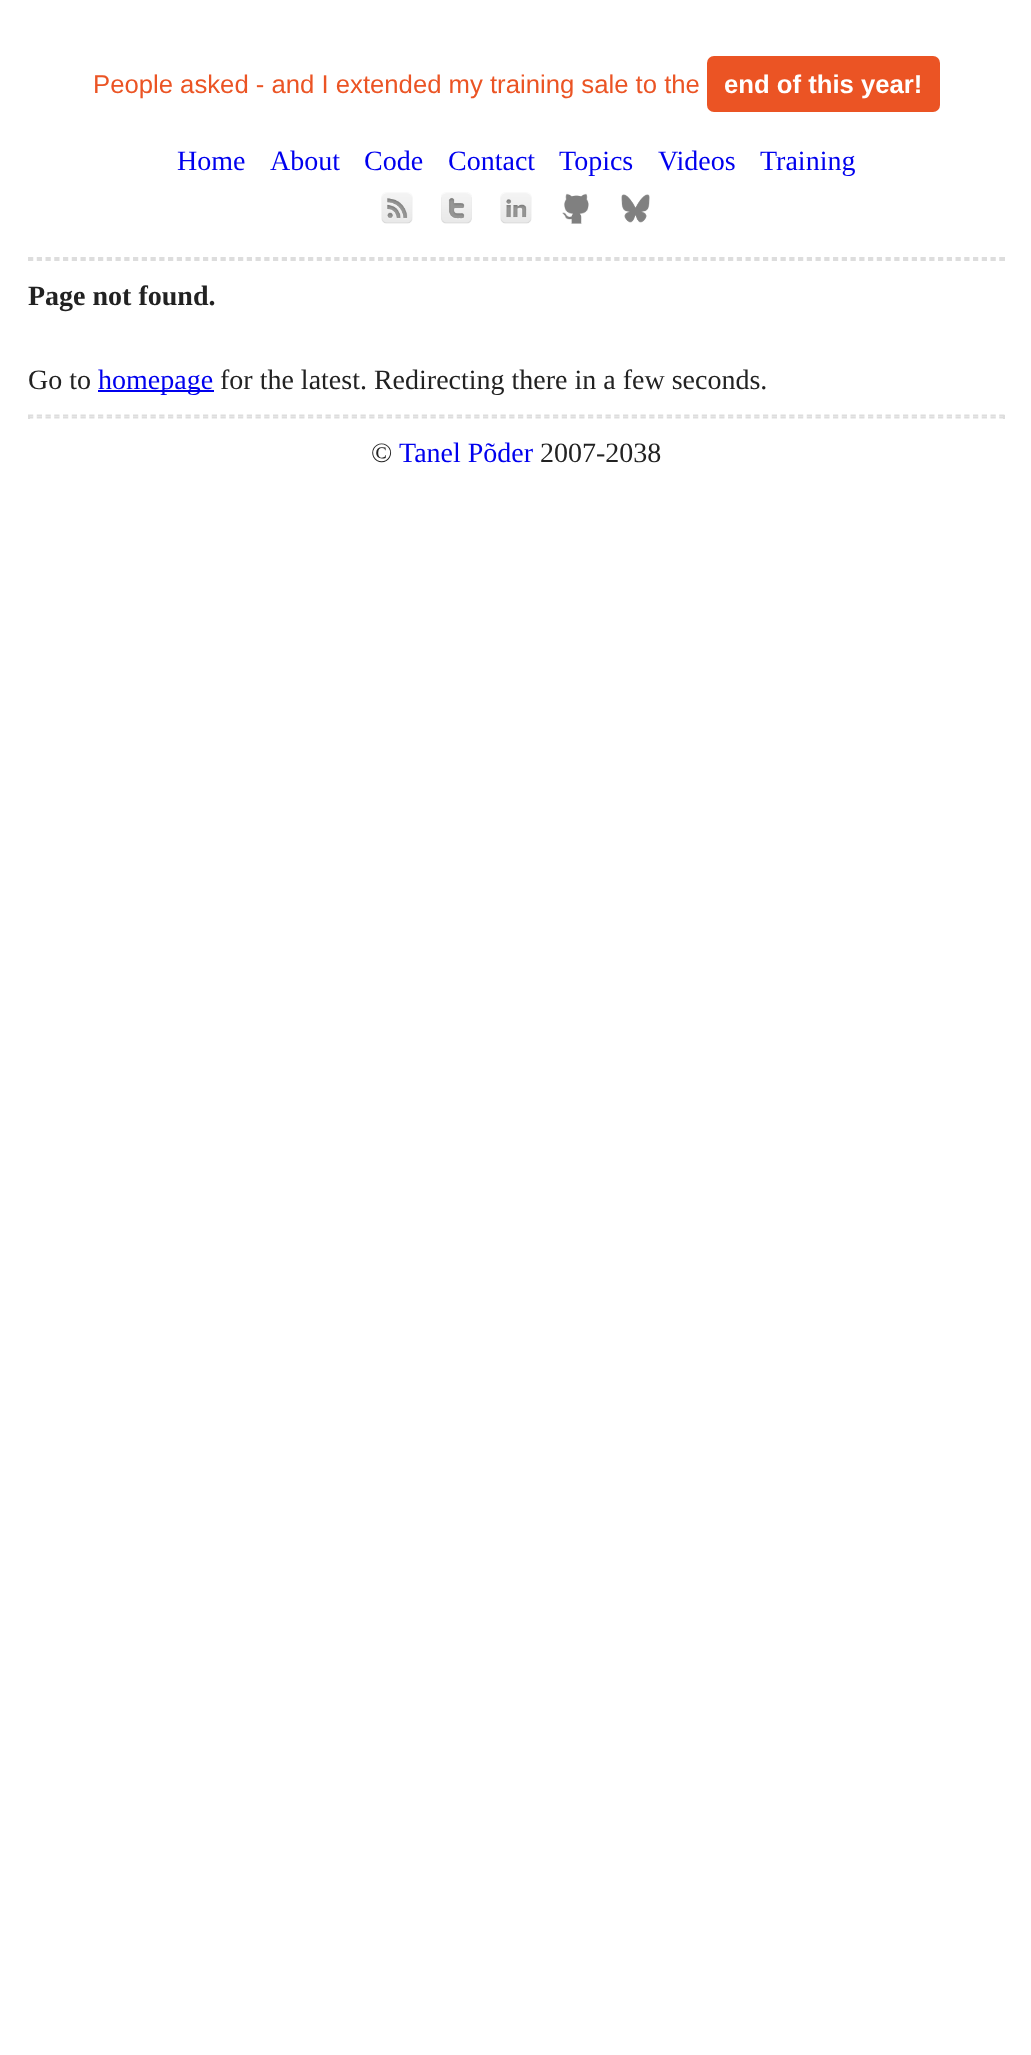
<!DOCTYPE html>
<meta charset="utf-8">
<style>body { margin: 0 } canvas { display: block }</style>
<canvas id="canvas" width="1031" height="2055"></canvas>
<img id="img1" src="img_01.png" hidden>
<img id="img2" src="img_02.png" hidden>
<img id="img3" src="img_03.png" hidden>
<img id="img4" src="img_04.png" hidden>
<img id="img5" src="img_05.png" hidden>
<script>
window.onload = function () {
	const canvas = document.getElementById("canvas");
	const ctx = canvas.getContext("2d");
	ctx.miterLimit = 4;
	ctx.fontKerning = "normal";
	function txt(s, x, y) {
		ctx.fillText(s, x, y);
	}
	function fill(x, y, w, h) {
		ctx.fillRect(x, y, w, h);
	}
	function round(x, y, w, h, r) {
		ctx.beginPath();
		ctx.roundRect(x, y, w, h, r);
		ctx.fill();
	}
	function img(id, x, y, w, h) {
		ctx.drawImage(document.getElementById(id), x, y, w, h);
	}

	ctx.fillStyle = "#FFFFFF";
	fill(0, 0, 1031, 2055);
	ctx.fillStyle = "#EB5424";
	round(707, 56, 233, 56, 7);
	img("img1", 381, 192, 32, 32);
	img("img2", 441, 192, 31, 32);
	img("img3", 500, 192, 32, 32);
	img("img4", 562, 193, 27, 31);
	img("img5", 621, 194, 29, 29);
	ctx.beginPath();
	ctx.moveTo(28, 258);
	ctx.lineTo(1004.5, 258);
	ctx.strokeStyle = "#DDDDDD";
	ctx.lineWidth = 1.8;
	ctx.setLineDash([5.25, 3.5]);
	ctx.stroke();
	ctx.fillStyle = "#DDDDDD";
	fill(1003, 257, 2, 4);
	ctx.beginPath();
	ctx.moveTo(28, 260);
	ctx.lineTo(1004.5, 260);
	ctx.stroke();
	fill(28, 257, 2, 4);
	ctx.fillStyle = "#0000EE";
	fill(98, 390, 116, 2);
	ctx.beginPath();
	ctx.moveTo(28, 415.5);
	ctx.lineTo(1004.5, 415.5);
	ctx.stroke();
	ctx.fillStyle = "#DDDDDD";
	fill(1003, 415, 2, 4);
	ctx.beginPath();
	ctx.moveTo(28, 417.5);
	ctx.lineTo(1004.5, 417.5);
	ctx.stroke();
	fill(28, 415, 2, 4);
	ctx.font = "25.7px Liberation Sans";
	ctx.fillStyle = "#EB5424";
	txt("People asked - and I extended my training sale to the", 93, 93);
	ctx.font = "bold 25.7px Liberation Sans";
	ctx.fillStyle = "#FFFFFF";
	txt("end of this year!", 724, 93);
	ctx.font = "28px Liberation Serif";
	ctx.fillStyle = "#0000EE";
	txt("Home", 177, 170);
	txt("About", 270, 170);
	txt("Code", 364, 170);
	txt("Contact", 448, 170);
	txt("Topics", 559, 170);
	txt("Videos", 658, 170);
	txt("Training", 760, 170);
	ctx.font = "bold 28px Liberation Serif";
	ctx.fillStyle = "#222222";
	txt("Page not found.", 28, 305);
	ctx.font = "28px Liberation Serif";
	txt("Go to", 28, 389);
	ctx.fillStyle = "#0000EE";
	txt("homepage", 98, 389);
	ctx.fillStyle = "#222222";
	txt("for the latest. Redirecting there in a few seconds.", 220, 389);
	txt("©", 371, 462);
	ctx.fillStyle = "#0000EE";
	txt("Tanel Põder", 399, 462);
	ctx.fillStyle = "#222222";
	txt("2007-2038", 540, 462);
};
</script>
